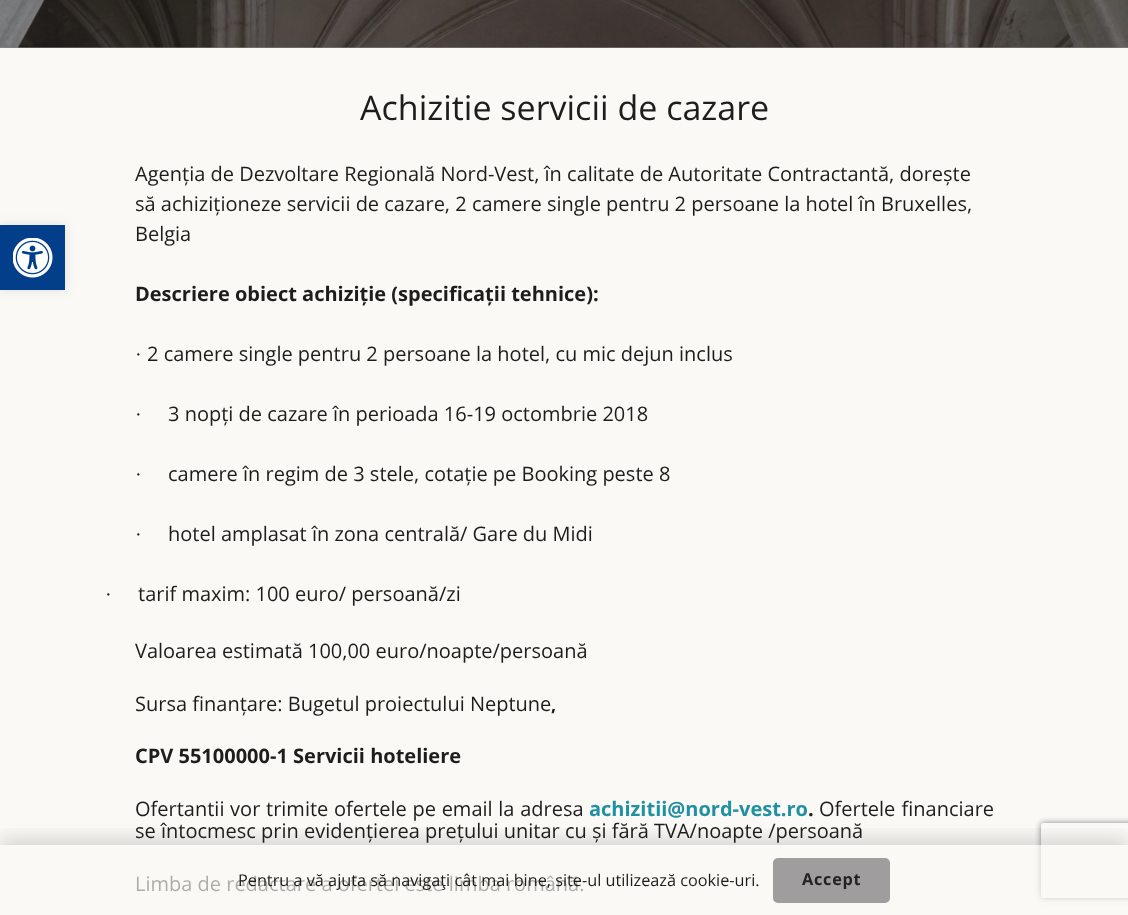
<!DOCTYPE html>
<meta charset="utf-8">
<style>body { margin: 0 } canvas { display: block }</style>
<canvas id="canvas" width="1128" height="915"></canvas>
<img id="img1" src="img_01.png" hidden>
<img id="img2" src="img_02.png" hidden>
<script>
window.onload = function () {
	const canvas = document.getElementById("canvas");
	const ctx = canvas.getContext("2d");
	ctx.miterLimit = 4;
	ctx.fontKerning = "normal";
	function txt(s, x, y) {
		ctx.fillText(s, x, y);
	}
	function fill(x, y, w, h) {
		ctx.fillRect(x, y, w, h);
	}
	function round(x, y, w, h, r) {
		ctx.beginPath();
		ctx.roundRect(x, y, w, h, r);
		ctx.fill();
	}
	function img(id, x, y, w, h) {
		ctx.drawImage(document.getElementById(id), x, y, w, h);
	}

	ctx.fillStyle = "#FAF9F6";
	fill(0, 0, 1128, 915);
	ctx.fillStyle = "#8A8A88";
	fill(0, 47, 1128, 1);
	ctx.fillStyle = "rgba(0, 0, 0, 0.1)";
	ctx.filter = "blur(6px)";
	ctx.beginPath();
	ctx.rect(0, 225, 65, 65);
	ctx.fill();
	ctx.filter = "none";
	ctx.fillStyle = "#023E8A";
	fill(0, 225, 65, 65);
	img("img1", 13, 238, 40, 40);
	img("img2", 0, 0, 1128, 48);
	ctx.save();
	ctx.beginPath();
	ctx.rect(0, 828, 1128, 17);
	ctx.clip();
	ctx.fillStyle = "rgba(0, 0, 0, 0.15)";
	ctx.filter = "blur(9.5px)";
	ctx.beginPath();
	ctx.rect(0, 839, 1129, 70);
	ctx.fill();
	ctx.filter = "none";
	ctx.restore();
	ctx.save();
	ctx.beginPath();
	ctx.moveTo(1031, 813);
	ctx.lineTo(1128, 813);
	ctx.lineTo(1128, 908);
	ctx.lineTo(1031, 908);
	ctx.closePath();
	ctx.moveTo(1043.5, 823);
	ctx.lineTo(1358.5, 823);
	ctx.bezierCurveTo(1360, 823, 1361, 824, 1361, 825.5);
	ctx.lineTo(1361, 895.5);
	ctx.bezierCurveTo(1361, 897, 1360, 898, 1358.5, 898);
	ctx.lineTo(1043.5, 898);
	ctx.bezierCurveTo(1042, 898, 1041, 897, 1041, 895.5);
	ctx.lineTo(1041, 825.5);
	ctx.bezierCurveTo(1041, 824, 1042, 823, 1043.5, 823);
	ctx.closePath();
	ctx.clip("evenodd");
	ctx.fillStyle = "#808080";
	ctx.filter = "blur(3px)";
	ctx.beginPath();
	ctx.roundRect(1041, 823, 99, 75, 2.5);
	ctx.fill();
	ctx.filter = "none";
	ctx.restore();
	ctx.font = "34px Open Sans";
	ctx.fillStyle = "#1D1D1B";
	txt("Achizitie servicii de cazare", 360, 120);
	ctx.font = "20px Open Sans";
	txt("Agenția de Dezvoltare Regională Nord-Vest, în calitate de Autoritate Contractantă, dorește", 135, 181);
	txt("să achiziționeze servicii de cazare, 2 camere single pentru 2 persoane la hotel în Bruxelles,", 135, 211);
	txt("Belgia", 135, 241);
	ctx.font = "bold 20px Open Sans";
	txt("Descriere obiect achiziție (specificații tehnice):", 135, 301);
	ctx.font = "20px Liberation Serif";
	txt("·", 135, 361);
	ctx.font = "20px Open Sans";
	txt("2 camere single pentru 2 persoane la hotel, cu mic dejun inclus", 147, 361);
	ctx.font = "20px Liberation Serif";
	txt("·", 135, 421);
	ctx.font = "20px Open Sans";
	txt("3 nopți de cazare în perioada 16-19 octombrie 2018", 168, 421);
	ctx.font = "20px Liberation Serif";
	txt("·", 135, 481);
	ctx.font = "20px Open Sans";
	txt("camere în regim de 3 stele, cotație pe Booking peste 8", 168, 481);
	ctx.font = "20px Liberation Serif";
	txt("·", 135, 541);
	ctx.font = "20px Open Sans";
	txt("hotel amplasat în zona centrală/ Gare du Midi", 168, 541);
	ctx.font = "20px Liberation Serif";
	txt("·", 105, 601);
	ctx.font = "20px Open Sans";
	txt("tarif maxim: 100 euro/ persoană/zi", 138, 601);
	txt("Valoarea estimată 100,00 euro/noapte/persoană", 135, 658);
	txt("Sursa finanțare: Bugetul proiectului Neptune", 135, 711);
	ctx.font = "bold 18px Open Sans";
	txt(",", 551, 711);
	ctx.font = "bold 20px Open Sans";
	txt("CPV 55100000-1 Servicii hoteliere", 135, 763);
	ctx.wordSpacing = "0.5px";
	ctx.font = "20px Open Sans";
	txt("Ofertantii vor trimite ofertele pe email la adresa", 135, 816);
	ctx.wordSpacing = "0px";
	ctx.font = "bold 20px Open Sans";
	ctx.fillStyle = "#2190A3";
	txt("achizitii@nord-vest.ro", 589, 816);
	ctx.fillStyle = "#1D1D1B";
	txt(".", 808, 816);
	ctx.wordSpacing = "1px";
	ctx.font = "20px Open Sans";
	txt("Ofertele financiare", 819, 816);
	ctx.wordSpacing = "0px";
	txt("se întocmesc prin evidențierea prețului unitar cu și fără TVA/noapte /persoană", 135, 838);
	txt("Limba de redactare a ofertei este limba română.", 135, 891);
	ctx.fillStyle = "rgba(250, 249, 246, 0.65)";
	fill(136, 845, 992, 59);
	ctx.font = "16.25px Open Sans";
	ctx.fillStyle = "#1D1D1B";
	txt("Pentru a vă ajuta să navigaţi cât mai bine, site-ul utilizează cookie-uri.", 238, 886);
	ctx.fillStyle = "#9F9D9D";
	round(773, 858, 117, 45, 5);
	ctx.letterSpacing = "0.75px";
	ctx.font = "bold 16.25px Open Sans";
	ctx.fillStyle = "#232323";
	txt("Accept", 802, 885);
};
</script>
